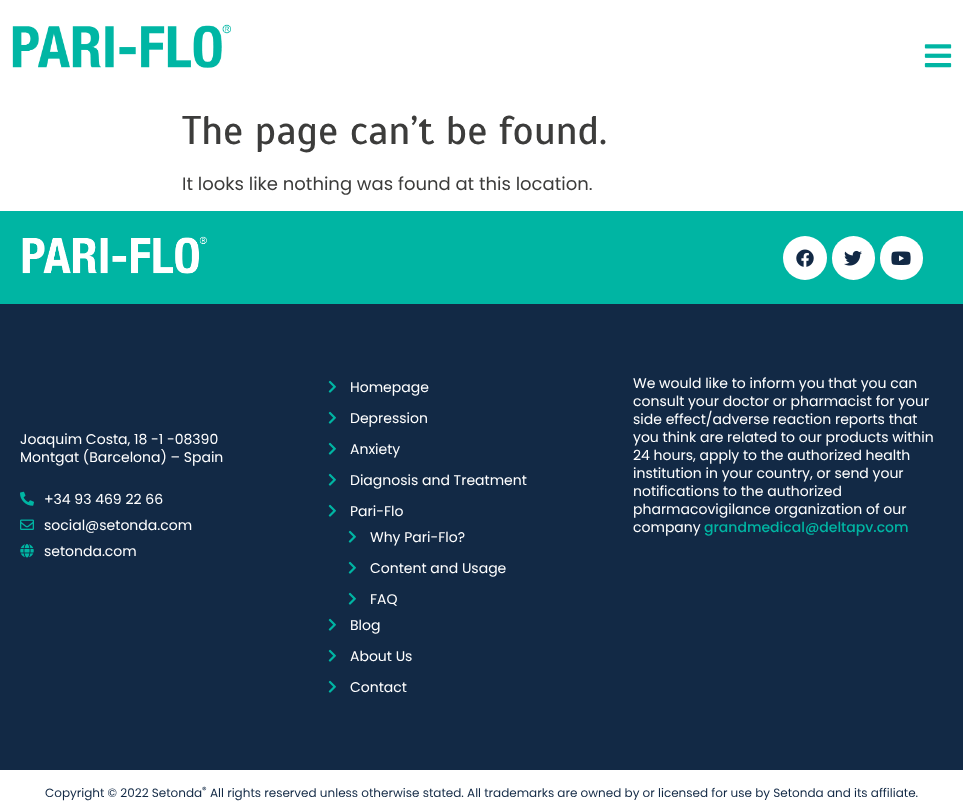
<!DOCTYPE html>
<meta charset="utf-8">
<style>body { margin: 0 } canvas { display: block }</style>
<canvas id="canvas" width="963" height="812"></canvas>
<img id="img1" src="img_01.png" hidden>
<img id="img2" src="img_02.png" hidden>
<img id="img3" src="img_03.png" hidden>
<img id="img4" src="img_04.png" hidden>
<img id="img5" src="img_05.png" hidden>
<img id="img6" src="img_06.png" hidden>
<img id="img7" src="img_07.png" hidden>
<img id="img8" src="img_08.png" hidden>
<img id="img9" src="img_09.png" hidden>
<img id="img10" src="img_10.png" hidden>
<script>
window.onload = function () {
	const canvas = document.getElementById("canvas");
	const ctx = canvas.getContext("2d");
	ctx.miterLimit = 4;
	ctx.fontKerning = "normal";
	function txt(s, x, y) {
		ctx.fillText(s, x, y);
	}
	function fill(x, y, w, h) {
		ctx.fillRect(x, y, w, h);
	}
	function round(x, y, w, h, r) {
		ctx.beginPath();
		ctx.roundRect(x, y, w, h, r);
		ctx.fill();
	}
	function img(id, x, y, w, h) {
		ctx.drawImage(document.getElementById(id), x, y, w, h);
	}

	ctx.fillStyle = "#FFFFFF";
	fill(0, 0, 963, 812);
	img("img1", 12, 24, 219, 44);
	img("img2", 924, 44, 28, 24);
	ctx.fillStyle = "#00B5A3";
	fill(0, 211, 963, 93);
	img("img3", 22, 236, 185, 38);
	ctx.fillStyle = "#FFFFFF";
	ctx.beginPath();
	ctx.arc(805, 258, 22, 0, Math.PI * 2);
	ctx.fill();
	img("img4", 796, 249, 18, 18);
	round(832, 236, 43, 44, 21.5);
	img("img5", 844, 250, 18, 16);
	round(880, 236, 43, 44, 21.5);
	img("img6", 891, 251, 20, 14);
	ctx.fillStyle = "#122945";
	fill(0, 304, 963, 466);
	img("img7", 20, 491, 14, 15);
	img("img8", 20, 519, 14, 11);
	img("img9", 20, 544, 14, 14);
	img("img10", 328, 380, 8, 13);
	img("img10", 328, 411, 8, 13);
	img("img10", 328, 442, 8, 13);
	img("img10", 328, 473, 8, 13);
	img("img10", 328, 504, 8, 13);
	img("img10", 348, 530, 8, 13);
	img("img10", 348, 561, 8, 13);
	img("img10", 348, 592, 8, 13);
	img("img10", 328, 618, 8, 13);
	img("img10", 328, 649, 8, 13);
	img("img10", 328, 680, 8, 13);
	ctx.font = "40px Scada";
	ctx.fillStyle = "#3C3C3B";
	txt("The page can’t be found.", 182, 144);
	ctx.font = "18px Poppins";
	txt("It looks like nothing was found at this location.", 182, 190);
	ctx.font = "14px Poppins";
	ctx.fillStyle = "#FFFFFF";
	txt("Joaquim Costa, 18 -1 -08390", 20, 444);
	txt("Montgat (Barcelona) – Spain", 20, 462);
	txt("+34 93 469 22 66", 44, 504);
	txt("social@setonda.com", 44, 530);
	txt("setonda.com", 44, 556);
	txt("Homepage", 350, 392);
	txt("Depression", 350, 423);
	txt("Anxiety", 350, 454);
	txt("Diagnosis and Treatment", 350, 485);
	txt("Pari-Flo", 350, 516);
	txt("Why Pari-Flo?", 370, 542);
	txt("Content and Usage", 370, 573);
	txt("FAQ", 370, 604);
	txt("Blog", 350, 630);
	txt("About Us", 350, 661);
	txt("Contact", 350, 692);
	txt("We would like to inform you that you can", 633, 388);
	txt("consult your doctor or pharmacist for your", 633, 406);
	txt("side effect/adverse reaction reports that", 633, 424);
	txt("you think are related to our products within", 633, 442);
	txt("24 hours, apply to the authorized health", 633, 460);
	txt("institution in your country, or send your", 633, 478);
	txt("notifications to the authorized", 633, 496);
	txt("pharmacovigilance organization of our", 633, 514);
	txt("company", 633, 532);
	ctx.font = "500 14px Poppins";
	ctx.fillStyle = "#00B5A3";
	txt("grandmedical@deltapv.com", 704, 532);
	ctx.font = "12px Poppins";
	ctx.fillStyle = "#122945";
	txt("Copyright © 2022 Setonda", 45, 797);
	ctx.font = "9px Poppins";
	txt("®", 202, 793);
	ctx.font = "12px Poppins";
	txt("All rights reserved unless otherwise stated. All trademarks are owned by or licensed for use by Setonda and its affiliate.", 210, 797);
};
</script>
